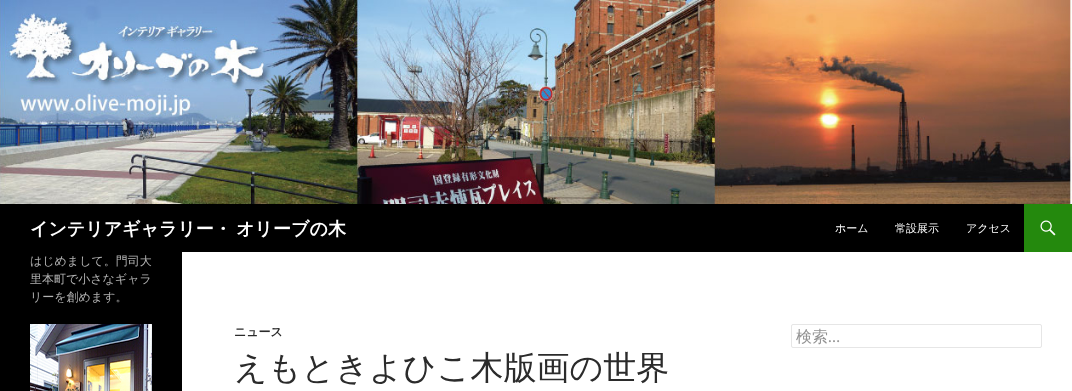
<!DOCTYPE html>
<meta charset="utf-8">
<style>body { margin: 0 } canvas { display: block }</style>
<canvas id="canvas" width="1072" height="391"></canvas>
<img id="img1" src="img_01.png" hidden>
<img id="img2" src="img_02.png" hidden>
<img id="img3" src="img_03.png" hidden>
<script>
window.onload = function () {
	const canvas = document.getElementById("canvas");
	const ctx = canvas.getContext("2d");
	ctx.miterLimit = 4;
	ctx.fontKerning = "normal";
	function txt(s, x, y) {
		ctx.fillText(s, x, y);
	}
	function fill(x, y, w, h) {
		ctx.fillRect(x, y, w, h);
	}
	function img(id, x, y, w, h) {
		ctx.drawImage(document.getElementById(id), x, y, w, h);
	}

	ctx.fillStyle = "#FFFFFF";
	fill(0, 0, 1072, 391);
	img("img1", 0, 0, 1072, 204);
	ctx.fillStyle = "#000000";
	fill(0, 204, 1024, 48);
	ctx.fillStyle = "#24890D";
	fill(1024, 204, 48, 48);
	img("img2", 1040, 220, 16, 16);
	ctx.fillStyle = "#000000";
	fill(0, 252, 182, 139);
	img("img3", 30, 324, 122, 67);
	ctx.beginPath();
	ctx.roundRect(791.5, 324.5, 250, 23, 1.5);
	ctx.strokeStyle = "#E6E6E6";
	ctx.stroke();
	ctx.wordSpacing = "-1px";
	ctx.font = "bold 18px WenQuanYi Zen Hei";
	ctx.fillStyle = "#FFFFFF";
	txt("インテリアギャラリー・ オリーブの木", 30, 235);
	ctx.wordSpacing = "0px";
	ctx.font = "500 11px WenQuanYi Zen Hei";
	txt("ホーム", 835, 232);
	txt("常設展示", 895, 232);
	txt("アクセス", 966, 232);
	ctx.font = "500 12px WenQuanYi Zen Hei";
	ctx.fillStyle = "#B3B3B3";
	txt("はじめまして。門司大", 30, 265);
	txt("里本町で小さなギャラ", 30, 283);
	txt("リーを創めます。", 30, 301);
	ctx.font = "bold 12px WenQuanYi Zen Hei";
	ctx.fillStyle = "#2B2B2B";
	txt("ニュース", 234, 336);
	ctx.font = "500 33px WenQuanYi Zen Hei";
	txt("えもときよひこ木版画の世界", 234, 379);
	ctx.font = "500 16px WenQuanYi Zen Hei";
	ctx.fillStyle = "#939393";
	txt("検索", 796, 342);
	ctx.font = "16px Lato";
	txt("…", 828, 342);
};
</script>
